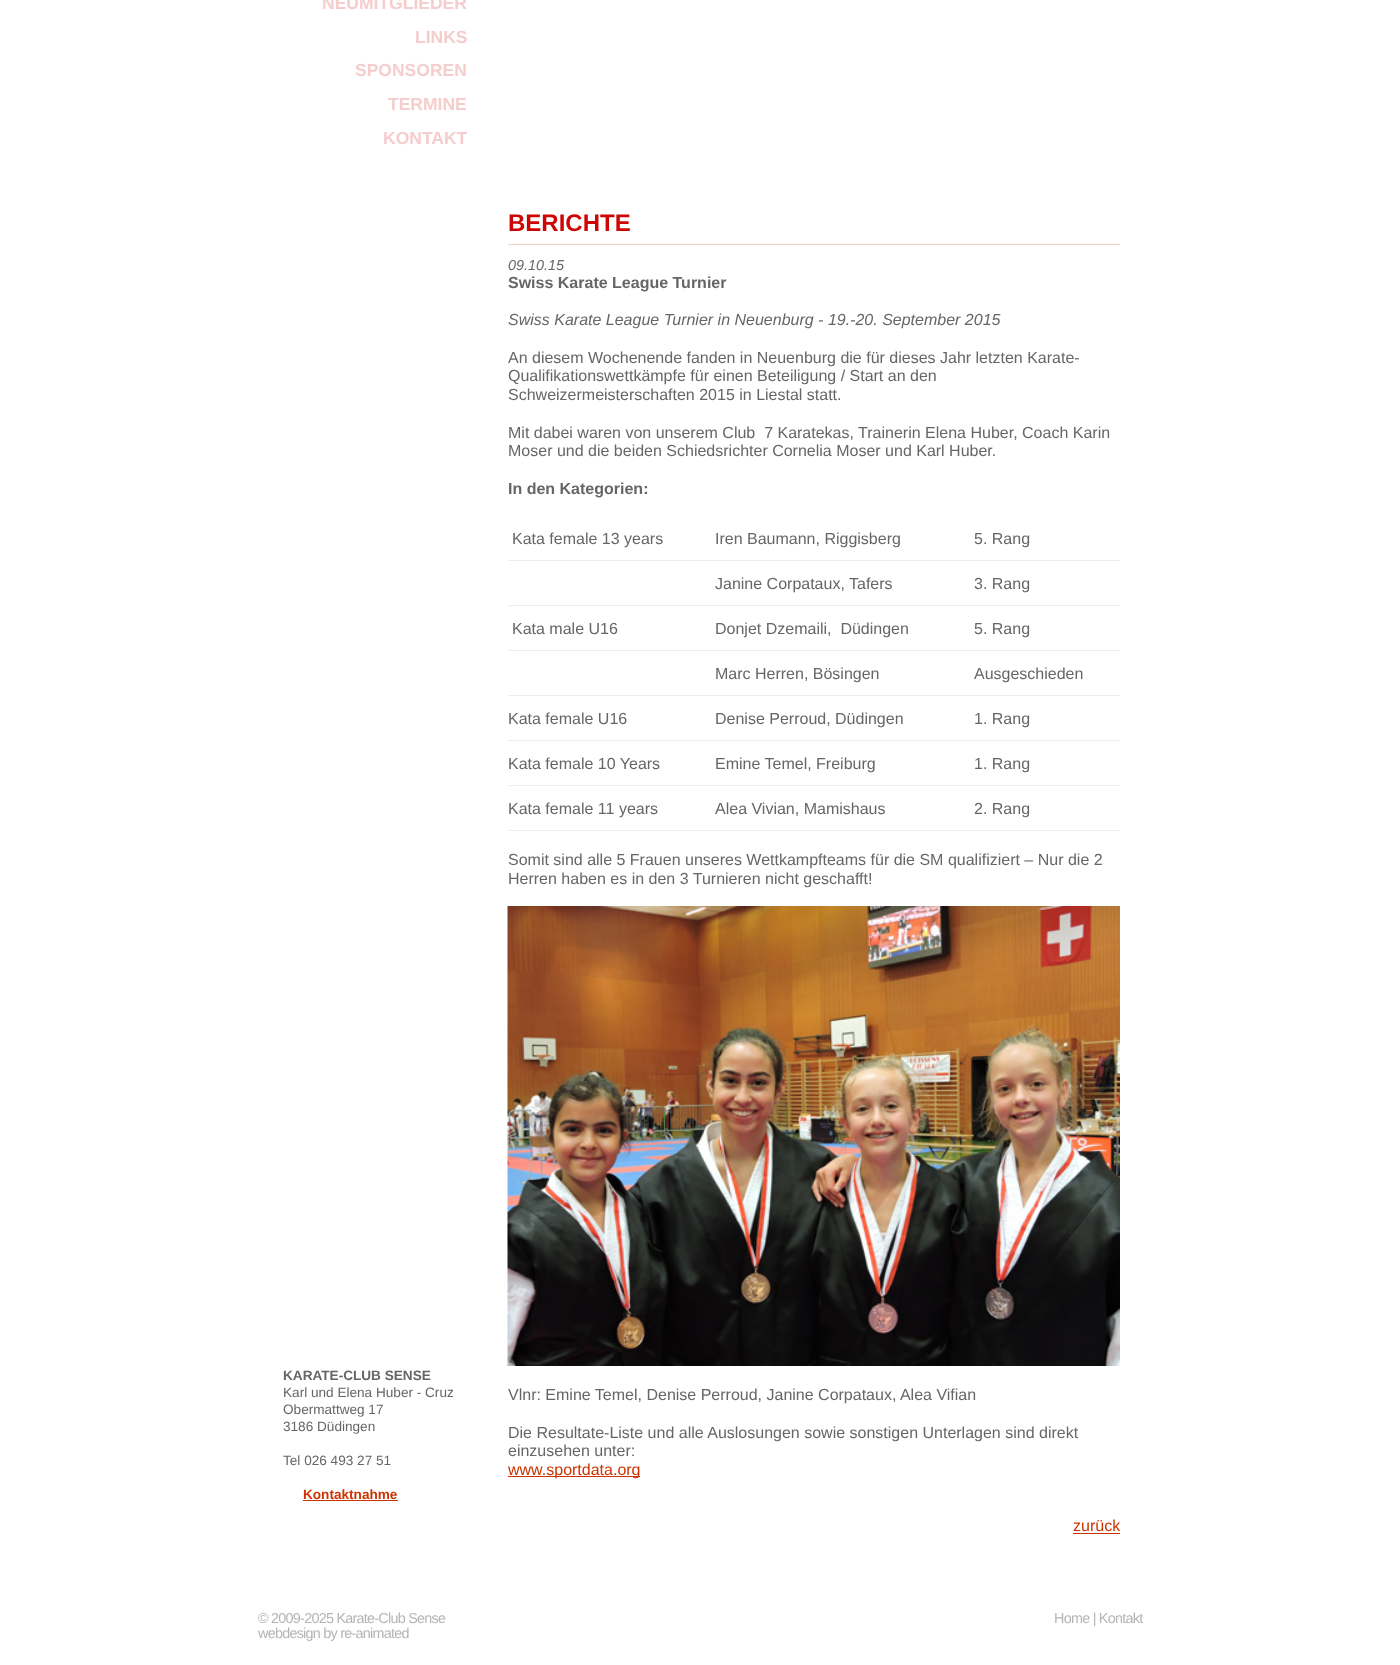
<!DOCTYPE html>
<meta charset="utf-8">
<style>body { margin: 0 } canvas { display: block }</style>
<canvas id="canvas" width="1400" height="1665"></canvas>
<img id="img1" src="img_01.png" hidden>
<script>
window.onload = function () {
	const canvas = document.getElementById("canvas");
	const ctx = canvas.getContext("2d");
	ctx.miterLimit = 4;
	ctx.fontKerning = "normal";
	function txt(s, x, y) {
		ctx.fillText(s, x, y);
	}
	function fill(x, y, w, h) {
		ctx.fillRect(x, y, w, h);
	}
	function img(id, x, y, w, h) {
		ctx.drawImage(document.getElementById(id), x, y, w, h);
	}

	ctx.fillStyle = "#FFFFFF";
	fill(0, 0, 1400, 1665);
	ctx.fillStyle = "#CC3300";
	fill(303, 1500, 95, 1);
	ctx.fillStyle = "#F5CDCD";
	fill(508, 244, 612, 1);
	ctx.fillStyle = "#ECECEC";
	fill(508, 560, 612, 1);
	fill(508, 605, 612, 1);
	fill(508, 650, 612, 1);
	fill(508, 695, 612, 1);
	fill(508, 740, 612, 1);
	fill(508, 785, 612, 1);
	fill(508, 830, 612, 1);
	img("img1", 507, 906, 613, 460);
	ctx.fillStyle = "#CC3300";
	fill(508, 1476, 132, 1);
	fill(1073, 1533, 47, 1);
	ctx.font = "bold 17.5px Liberation Sans";
	ctx.fillStyle = "#F5CDCD";
	txt("NEUMITGLIEDER", 322, 9);
	txt("LINKS", 415, 43);
	txt("SPONSOREN", 355, 76);
	txt("TERMINE", 388, 110);
	txt("KONTAKT", 383, 144);
	ctx.font = "bold 13.6px Liberation Sans";
	ctx.fillStyle = "#666666";
	txt("KARATE-CLUB SENSE", 283, 1380);
	ctx.font = "13.6px Liberation Sans";
	txt("Karl und Elena Huber - Cruz", 283, 1397);
	txt("Obermattweg 17", 283, 1414);
	txt("3186 Düdingen", 283, 1431);
	txt("Tel 026 493 27 51", 283, 1465);
	ctx.font = "bold 13.6px Liberation Sans";
	ctx.fillStyle = "#CC3300";
	txt("Kontaktnahme", 303, 1499);
	ctx.font = "bold 24px Liberation Sans";
	ctx.fillStyle = "#CD0505";
	txt("BERICHTE", 508, 231);
	ctx.font = "italic 14.4px Liberation Sans";
	ctx.fillStyle = "#666666";
	txt("09.10.15", 508, 270);
	ctx.font = "bold 16px Liberation Sans";
	txt("Swiss Karate League Turnier", 508, 288);
	ctx.font = "italic 16px Liberation Sans";
	txt("Swiss Karate League Turnier in Neuenburg - 19.-20. September 2015", 508, 325);
	ctx.font = "16px Liberation Sans";
	txt("An diesem Wochenende fanden in Neuenburg die für dieses Jahr letzten Karate-", 508, 363);
	txt("Qualifikationswettkämpfe für einen Beteiligung / Start an den", 508, 381);
	txt("Schweizermeisterschaften 2015 in Liestal statt.", 508, 400);
	txt("Mit dabei waren von unserem Club  7 Karatekas, Trainerin Elena Huber, Coach Karin", 508, 438);
	txt("Moser und die beiden Schiedsrichter Cornelia Moser und Karl Huber.", 508, 456);
	ctx.font = "bold 16px Liberation Sans";
	txt("In den Kategorien:", 508, 494);
	ctx.font = "16px Liberation Sans";
	txt("Kata female 13 years", 512, 544);
	txt("Iren Baumann, Riggisberg", 715, 544);
	txt("5. Rang", 974, 544);
	txt("Janine Corpataux, Tafers", 715, 589);
	txt("3. Rang", 974, 589);
	txt("Kata male U16", 512, 634);
	txt("Donjet Dzemaili,  Düdingen", 715, 634);
	txt("5. Rang", 974, 634);
	txt("Marc Herren, Bösingen", 715, 679);
	txt("Ausgeschieden", 974, 679);
	txt("Kata female U16", 508, 724);
	txt("Denise Perroud, Düdingen", 715, 724);
	txt("1. Rang", 974, 724);
	txt("Kata female 10 Years", 508, 769);
	txt("Emine Temel, Freiburg", 715, 769);
	txt("1. Rang", 974, 769);
	txt("Kata female 11 years", 508, 814);
	txt("Alea Vivian, Mamishaus", 715, 814);
	txt("2. Rang", 974, 814);
	txt("Somit sind alle 5 Frauen unseres Wettkampfteams für die SM qualifiziert – Nur die 2", 508, 865);
	txt("Herren haben es in den 3 Turnieren nicht geschafft!", 508, 884);
	txt("Vlnr: Emine Temel, Denise Perroud, Janine Corpataux, Alea Vifian", 508, 1400);
	txt("Die Resultate-Liste und alle Auslosungen sowie sonstigen Unterlagen sind direkt", 508, 1438);
	txt("einzusehen unter:", 508, 1456);
	ctx.fillStyle = "#CC3300";
	txt("www.sportdata.org", 508, 1475);
	txt("zurück", 1073, 1531);
	ctx.letterSpacing = "-0.75px";
	ctx.font = "14.4px Liberation Sans";
	ctx.fillStyle = "#B5B5B5";
	txt("© 2009-2025 Karate-Club Sense", 258, 1623);
	txt("webdesign by re-animated", 258, 1638);
	txt("Home | Kontakt", 1054, 1623);
};
</script>
